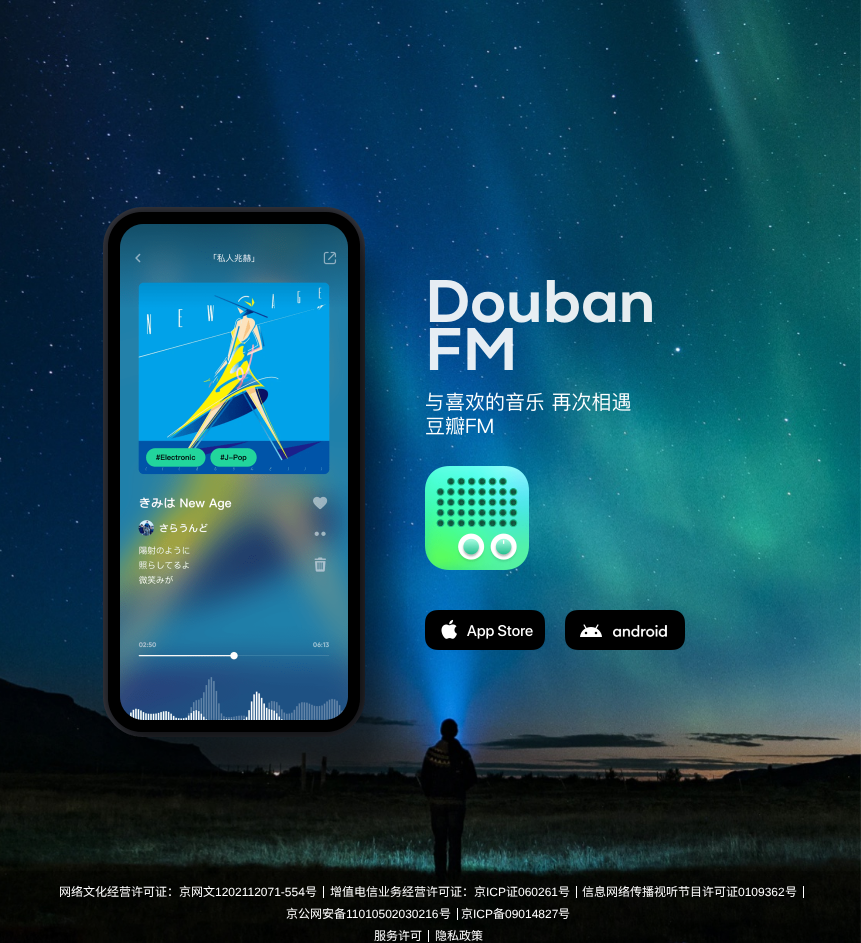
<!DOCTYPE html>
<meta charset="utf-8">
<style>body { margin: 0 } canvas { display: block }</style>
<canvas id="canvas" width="861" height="943"></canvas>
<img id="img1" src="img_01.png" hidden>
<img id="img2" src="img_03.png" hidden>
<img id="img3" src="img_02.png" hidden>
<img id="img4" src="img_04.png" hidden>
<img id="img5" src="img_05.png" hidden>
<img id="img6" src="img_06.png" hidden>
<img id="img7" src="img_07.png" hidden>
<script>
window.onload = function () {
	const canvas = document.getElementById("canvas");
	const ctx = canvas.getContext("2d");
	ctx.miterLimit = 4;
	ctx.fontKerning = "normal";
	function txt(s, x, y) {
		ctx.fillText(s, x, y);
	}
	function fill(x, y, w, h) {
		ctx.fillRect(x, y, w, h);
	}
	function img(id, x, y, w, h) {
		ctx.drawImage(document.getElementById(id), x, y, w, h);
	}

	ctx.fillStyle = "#FFFFFF";
	fill(0, 0, 861, 943);
	img("img1", 0, 0, 861, 943);
	img("img2", 120, 224, 228, 496);
	img("img3", 103, 207, 304, 570);
	img("img4", 426, 280, 226, 155);
	img("img5", 425, 466, 104, 104);
	img("img6", 425, 610, 120, 40);
	img("img7", 565, 610, 120, 40);
	ctx.fillStyle = "rgba(0, 0, 0, 0.19)";
	fill(0, 871, 861, 72);
	ctx.fillStyle = "#FFFFFF";
	fill(323, 886, 1, 12);
	fill(576, 886, 1, 12);
	fill(803, 886, 1, 12);
	fill(457, 908, 1, 12);
	fill(428, 930, 1, 12);
	ctx.font = "12px Noto Sans CJK SC";
	txt("网络文化经营许可证：京网文", 59, 896);
	ctx.font = "12px Liberation Sans";
	txt("1202112071-554", 215, 896);
	ctx.font = "12px Noto Sans CJK SC";
	txt("号", 305, 896);
	txt("增值电信业务经营许可证：京", 330, 896);
	ctx.font = "12px Liberation Sans";
	txt("ICP", 486, 896);
	ctx.font = "12px Noto Sans CJK SC";
	txt("证", 506, 896);
	ctx.font = "12px Liberation Sans";
	txt("060261", 518, 896);
	ctx.font = "12px Noto Sans CJK SC";
	txt("号", 558, 896);
	txt("信息网络传播视听节目许可证", 582, 896);
	ctx.font = "12px Liberation Sans";
	txt("0109362", 738, 896);
	ctx.font = "12px Noto Sans CJK SC";
	txt("号", 785, 896);
	txt("京公网安备", 286, 918);
	ctx.font = "12px Liberation Sans";
	txt("11010502030216", 346, 918);
	ctx.font = "12px Noto Sans CJK SC";
	txt("号", 439, 918);
	txt("京", 461, 918);
	ctx.font = "12px Liberation Sans";
	txt("ICP", 473, 918);
	ctx.font = "12px Noto Sans CJK SC";
	txt("备", 493, 918);
	ctx.font = "12px Liberation Sans";
	txt("09014827", 505, 918);
	ctx.font = "12px Noto Sans CJK SC";
	txt("号", 558, 918);
	txt("服务许可", 374, 940);
	txt("隐私政策", 435, 940);
};
</script>
